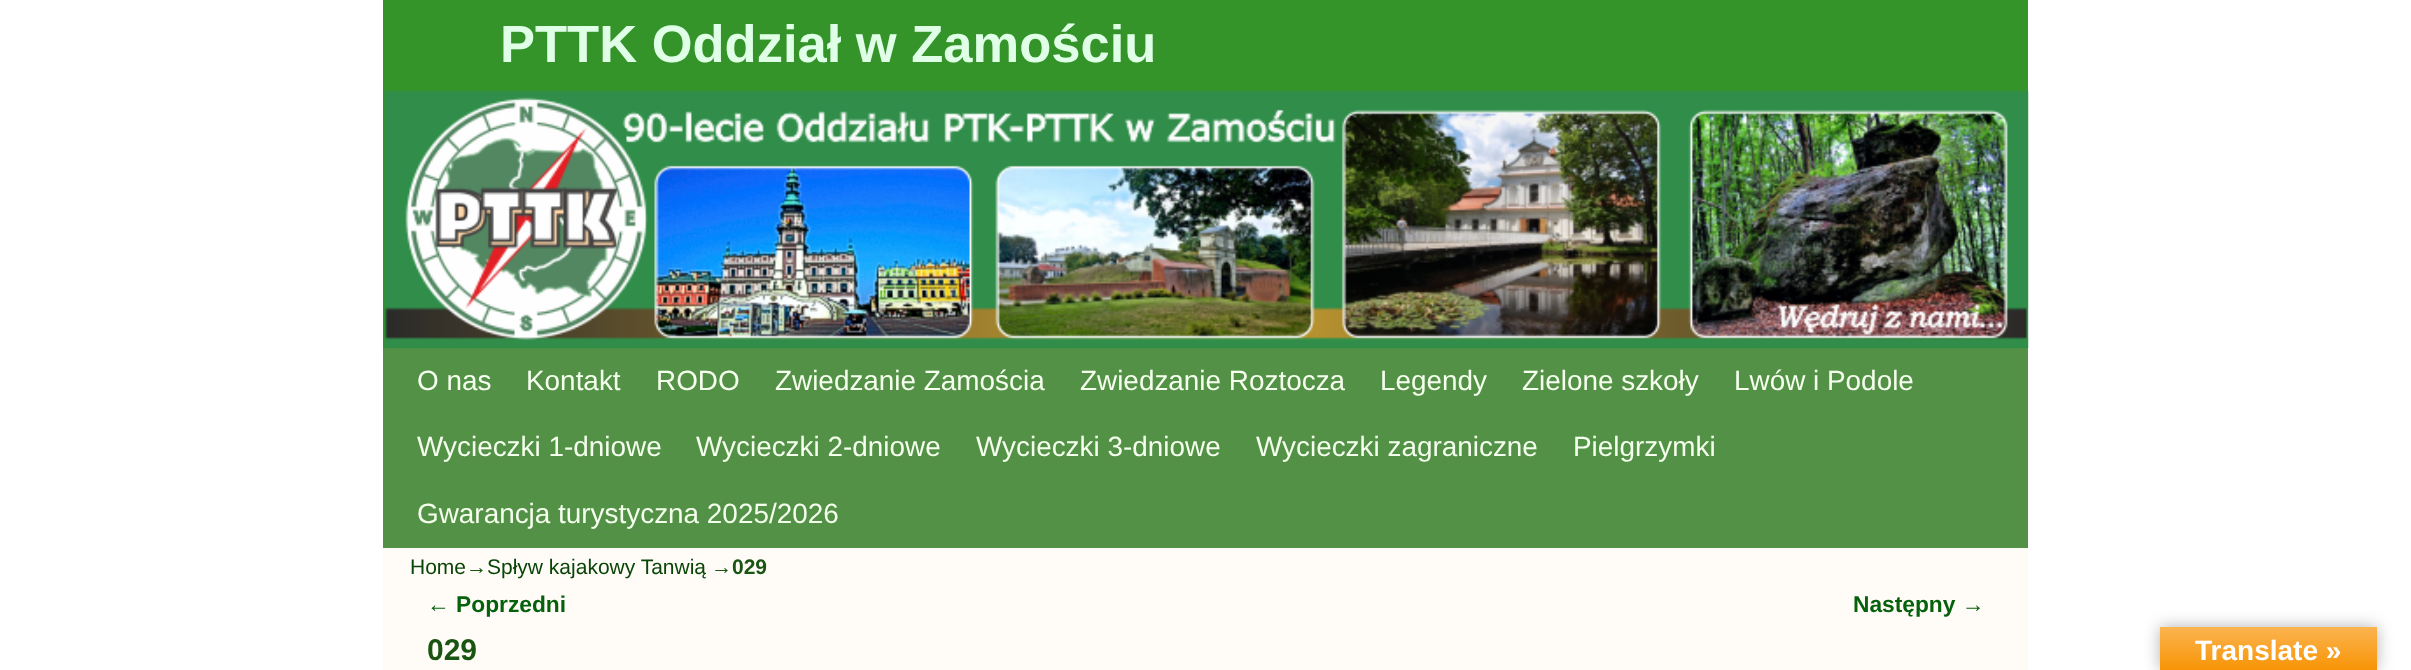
<!DOCTYPE html>
<meta charset="utf-8">
<style>body { margin: 0 } canvas { display: block }</style>
<canvas id="canvas" width="2411" height="670"></canvas>
<img id="img1" src="img_01.png" hidden>
<script>
window.onload = function () {
	const canvas = document.getElementById("canvas");
	const ctx = canvas.getContext("2d");
	ctx.miterLimit = 4;
	ctx.fontKerning = "normal";
	function txt(s, x, y) {
		ctx.fillText(s, x, y);
	}
	function fill(x, y, w, h) {
		ctx.fillRect(x, y, w, h);
	}
	function img(id, x, y, w, h) {
		ctx.drawImage(document.getElementById(id), x, y, w, h);
	}
	let gradient;

	ctx.fillStyle = "#FFFFFF";
	fill(0, 0, 2411, 670);
	ctx.fillStyle = "#FFFCF7";
	fill(383, 548, 1645, 122);
	ctx.fillStyle = "#349429";
	fill(383, 0, 1645, 348);
	ctx.fillStyle = "#539146";
	fill(383, 348, 1645, 200);
	img("img1", 383, 90, 1646, 259);
	ctx.fillStyle = "rgba(0, 0, 0, 0.3)";
	ctx.filter = "blur(8px)";
	ctx.beginPath();
	ctx.rect(2160, 627, 217, 43);
	ctx.fill();
	ctx.filter = "none";
	gradient = ctx.createLinearGradient(2268, 627, 2268, 670);
	gradient.addColorStop(0, "#FBB450");
	gradient.addColorStop(1, "#F89406");
	ctx.fillStyle = gradient;
	fill(2160, 627, 217, 43);
	ctx.font = "bold 52.5px Liberation Sans";
	ctx.fillStyle = "#E0FFE7";
	txt("PTTK Oddział w Zamościu", 500, 62);
	ctx.font = "27.9px Liberation Sans";
	ctx.fillStyle = "#F5FFED";
	txt("O nas", 417, 390);
	txt("Kontakt", 526, 390);
	txt("RODO", 656, 390);
	txt("Zwiedzanie Zamościa", 775, 390);
	txt("Zwiedzanie Roztocza", 1080, 390);
	txt("Legendy", 1380, 390);
	txt("Zielone szkoły", 1522, 390);
	txt("Lwów i Podole", 1734, 390);
	txt("Wycieczki 1-dniowe", 417, 456);
	txt("Wycieczki 2-dniowe", 696, 456);
	txt("Wycieczki 3-dniowe", 976, 456);
	txt("Wycieczki zagraniczne", 1256, 456);
	txt("Pielgrzymki", 1573, 456);
	txt("Gwarancja turystyczna 2025/2026", 417, 523);
	ctx.font = "21px Liberation Sans";
	ctx.fillStyle = "#0A4508";
	txt("Home", 410, 574);
	ctx.fillStyle = "#195412";
	txt("→", 466, 574);
	ctx.fillStyle = "#0A4508";
	txt("Spływ kajakowy Tanwią", 487, 574);
	ctx.fillStyle = "#195412";
	txt("→", 711, 574);
	ctx.font = "bold 21px Liberation Sans";
	txt("029", 732, 574);
	ctx.font = "bold 22.75px Liberation Sans";
	ctx.fillStyle = "#06610C";
	txt("← Poprzedni", 427, 612);
	txt("Następny →", 1853, 612);
	ctx.font = "bold 30px Liberation Sans";
	ctx.fillStyle = "#195412";
	txt("029", 427, 660);
	ctx.font = "bold 28px Liberation Sans";
	ctx.fillStyle = "#FFFFFF";
	txt("Translate »", 2195, 660);
};
</script>
